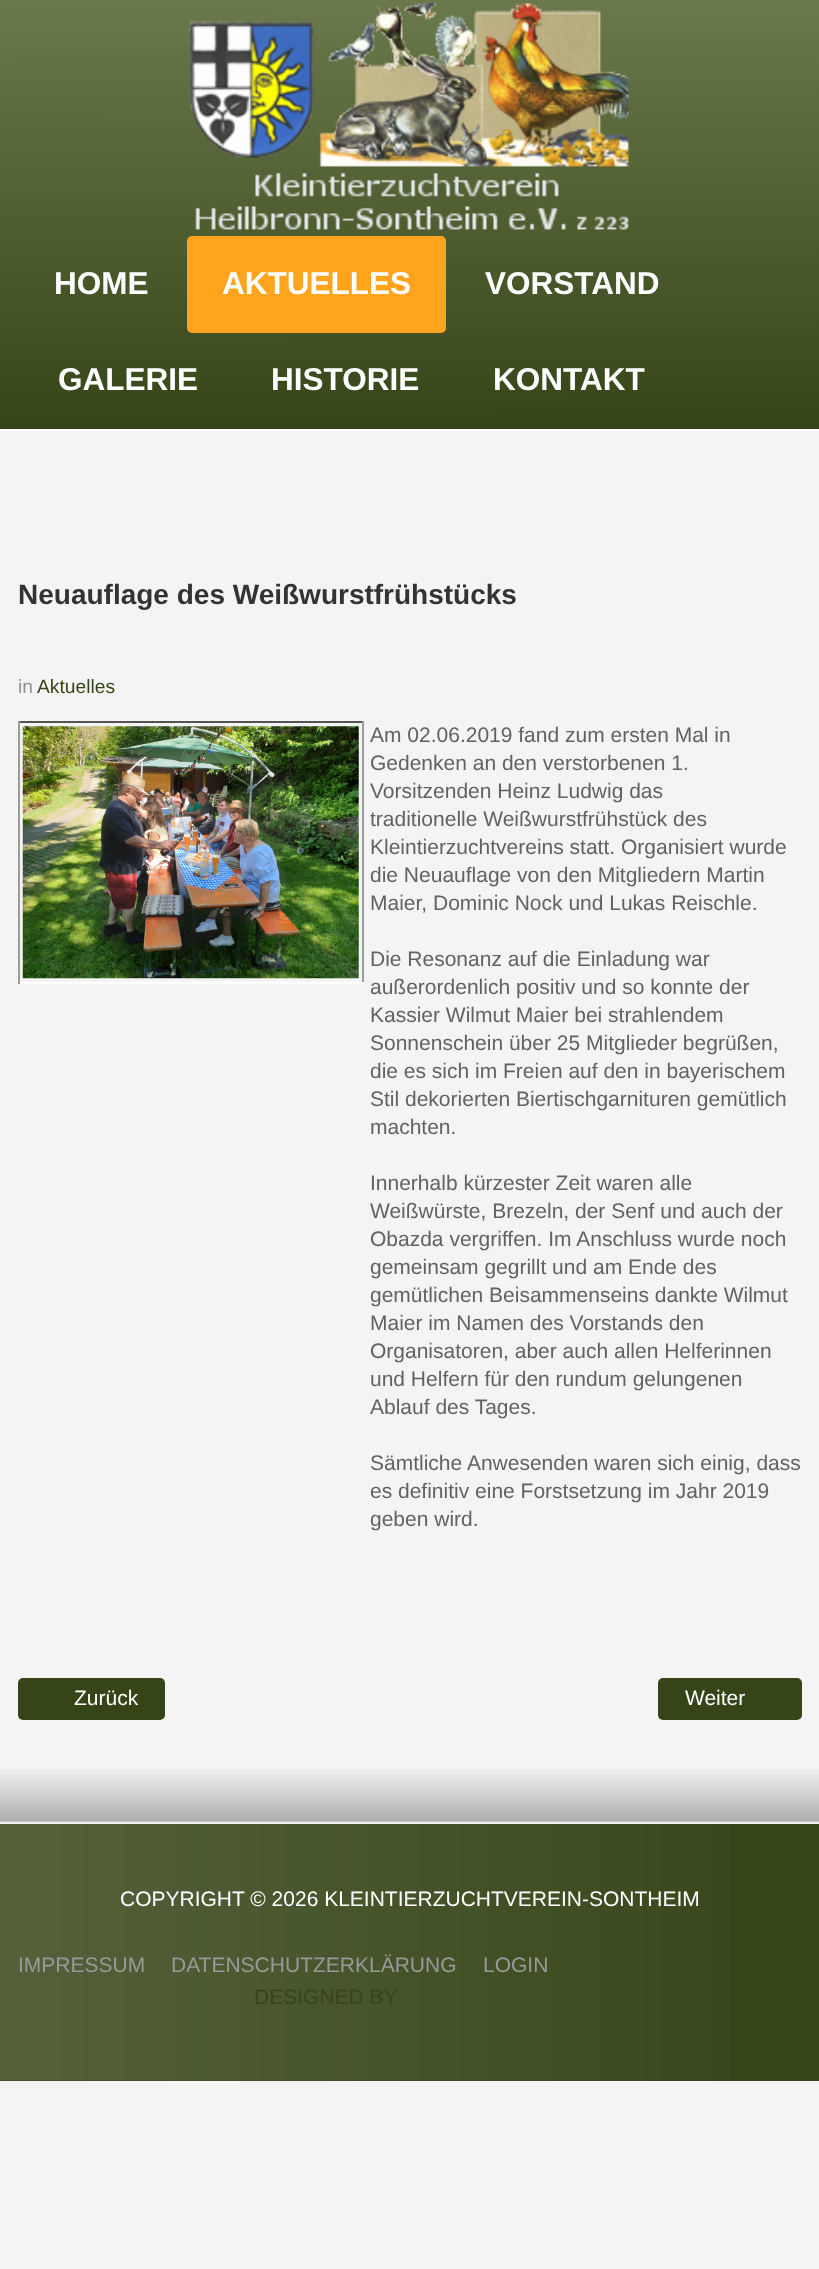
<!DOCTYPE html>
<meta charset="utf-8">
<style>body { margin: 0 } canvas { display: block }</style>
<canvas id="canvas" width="819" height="2269"></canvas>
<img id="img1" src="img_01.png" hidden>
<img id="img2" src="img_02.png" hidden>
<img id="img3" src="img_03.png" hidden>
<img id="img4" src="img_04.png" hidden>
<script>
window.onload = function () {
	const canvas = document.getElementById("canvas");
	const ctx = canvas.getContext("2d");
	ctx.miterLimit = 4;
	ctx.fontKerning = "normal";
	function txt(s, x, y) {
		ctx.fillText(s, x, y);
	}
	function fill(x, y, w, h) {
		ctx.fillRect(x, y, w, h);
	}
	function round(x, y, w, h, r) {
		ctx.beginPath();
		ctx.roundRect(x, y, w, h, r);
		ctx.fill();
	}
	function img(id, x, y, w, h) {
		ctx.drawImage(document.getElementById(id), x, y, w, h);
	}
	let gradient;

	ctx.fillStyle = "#F4F4F4";
	fill(0, 0, 819, 2269);
	gradient = ctx.createLinearGradient(409, 0, 410, 429);
	gradient.addColorStop(0, "#6A794C");
	gradient.addColorStop(1, "#364518");
	ctx.fillStyle = gradient;
	fill(0, 0, 819, 429);
	ctx.fillStyle = "#FFFFFF";
	fill(0, 429, 819, 2);
	img("img1", 188, 3, 441, 227);
	ctx.fillStyle = "#FFA41C";
	round(187, 236, 259, 97, 5);
	ctx.fillStyle = "#545453";
	fill(18, 721, 346, 2);
	ctx.fillStyle = "#9B9B9A";
	fill(362, 721, 2, 263);
	ctx.fillStyle = "#FFFFFF";
	fill(18, 982, 346, 2);
	ctx.fillStyle = "#9B9B9A";
	fill(18, 721, 2, 263);
	img("img2", 22, 726, 337, 253);
	ctx.fillStyle = "#364518";
	round(18, 1678, 147, 42, 5);
	round(658, 1678, 144, 42, 5);
	img("img3", 0, 1769, 819, 54);
	fill(0, 1824, 819, 257);
	img("img4", 0, 1824, 731, 257);
	ctx.font = "bold 31.5px Liberation Sans";
	ctx.fillStyle = "#FFFFFF";
	txt("HOME", 54, 294);
	txt("AKTUELLES", 222, 294);
	txt("VORSTAND", 485, 294);
	txt("GALERIE", 58, 390);
	txt("HISTORIE", 271, 390);
	txt("KONTAKT", 493, 390);
	ctx.font = "bold 28px Liberation Sans";
	ctx.fillStyle = "#333333";
	txt("Neuauflage des Weißwurstfrühstücks", 18, 604);
	ctx.font = "19.25px Liberation Sans";
	ctx.fillStyle = "#929292";
	txt("in", 18, 693);
	ctx.fillStyle = "#364518";
	txt("Aktuelles", 37, 693);
	ctx.font = "21px Liberation Sans";
	ctx.fillStyle = "#626262";
	txt("Am 02.06.2019 fand zum ersten Mal in", 370, 742);
	txt("Gedenken an den verstorbenen 1.", 370, 770);
	txt("Vorsitzenden Heinz Ludwig das", 370, 798);
	txt("traditionelle Weißwurstfrühstück des", 370, 826);
	txt("Kleintierzuchtvereins statt. Organisiert wurde", 370, 854);
	txt("die Neuauflage von den Mitgliedern Martin", 370, 882);
	txt("Maier, Dominic Nock und Lukas Reischle.", 370, 910);
	txt("Die Resonanz auf die Einladung war", 370, 966);
	txt("außerordenlich positiv und so konnte der", 370, 994);
	txt("Kassier Wilmut Maier bei strahlendem", 370, 1022);
	txt("Sonnenschein über 25 Mitglieder begrüßen,", 370, 1050);
	txt("die es sich im Freien auf den in bayerischem", 370, 1078);
	txt("Stil dekorierten Biertischgarnituren gemütlich", 370, 1106);
	txt("machten.", 370, 1134);
	txt("Innerhalb kürzester Zeit waren alle", 370, 1190);
	txt("Weißwürste, Brezeln, der Senf und auch der", 370, 1218);
	txt("Obazda vergriffen. Im Anschluss wurde noch", 370, 1246);
	txt("gemeinsam gegrillt und am Ende des", 370, 1274);
	txt("gemütlichen Beisammenseins dankte Wilmut", 370, 1302);
	txt("Maier im Namen des Vorstands den", 370, 1330);
	txt("Organisatoren, aber auch allen Helferinnen", 370, 1358);
	txt("und Helfern für den rundum gelungenen", 370, 1386);
	txt("Ablauf des Tages.", 370, 1414);
	txt("Sämtliche Anwesenden waren sich einig, dass", 370, 1470);
	txt("es definitiv eine Forstsetzung im Jahr 2019", 370, 1498);
	txt("geben wird.", 370, 1526);
	ctx.fillStyle = "#FFFFFF";
	txt("Zurück", 74, 1705);
	txt("Weiter", 685, 1705);
	txt("COPYRIGHT © 2026 KLEINTIERZUCHTVEREIN-SONTHEIM", 120, 1906);
	ctx.fillStyle = "#999999";
	txt("IMPRESSUM", 18, 1972);
	txt("DATENSCHUTZERKLÄRUNG", 171, 1972);
	txt("LOGIN", 483, 1972);
	ctx.fillStyle = "#364518";
	txt("DESIGNED BY", 254, 2004);
};
</script>
